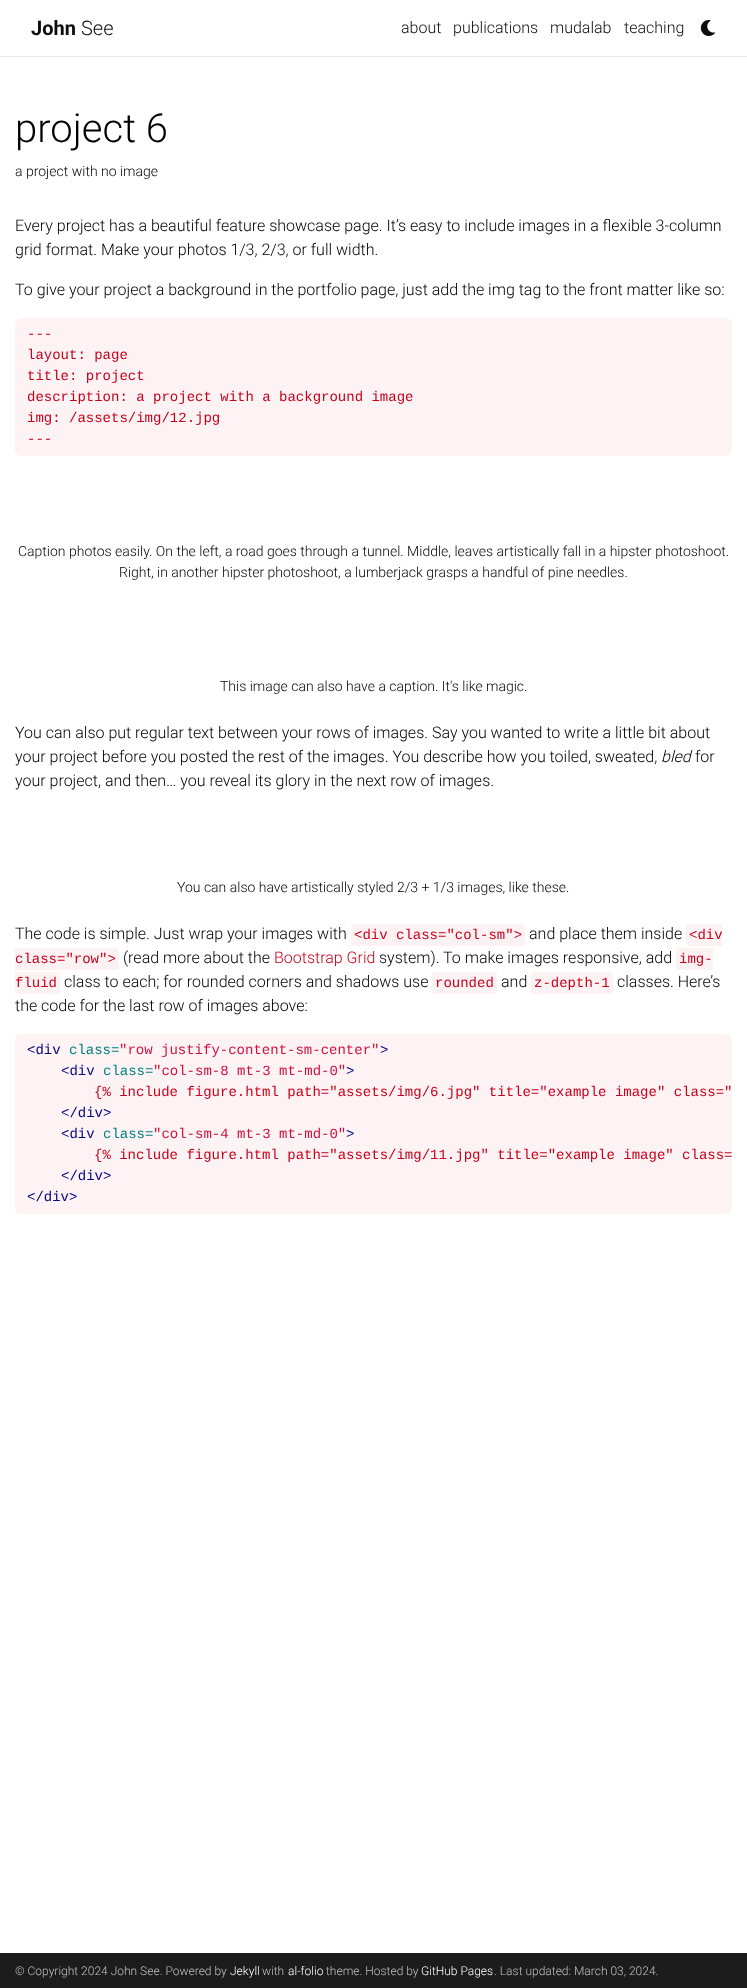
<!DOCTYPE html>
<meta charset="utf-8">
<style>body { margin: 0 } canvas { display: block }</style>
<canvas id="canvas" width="747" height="1988"></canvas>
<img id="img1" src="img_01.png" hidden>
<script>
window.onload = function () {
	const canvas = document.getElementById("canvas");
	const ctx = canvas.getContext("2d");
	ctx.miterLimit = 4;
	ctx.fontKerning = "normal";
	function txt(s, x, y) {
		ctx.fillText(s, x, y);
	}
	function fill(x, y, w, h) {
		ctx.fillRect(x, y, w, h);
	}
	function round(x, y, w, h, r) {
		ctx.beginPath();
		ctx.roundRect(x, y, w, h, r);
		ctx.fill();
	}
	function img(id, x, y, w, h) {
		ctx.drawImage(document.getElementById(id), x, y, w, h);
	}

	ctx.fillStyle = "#FFFFFF";
	fill(0, 0, 747, 1988);
	ctx.fillStyle = "#E7E7E7";
	fill(0, 56, 747, 1);
	img("img1", 700, 20, 16, 16);
	ctx.fillStyle = "#FDF3F4";
	round(15, 318, 717, 138, 6);
	ctx.fillStyle = "#FCF2F4";
	round(351, 924, 174, 22, 3);
	ctx.beginPath();
	ctx.roundRect(686, 924, 36, 22, [3, 0, 0, 3]);
	ctx.fill();
	ctx.beginPath();
	ctx.roundRect(15, 948, 104, 22, [0, 3, 3, 0]);
	ctx.fill();
	ctx.beginPath();
	ctx.roundRect(676, 948, 37, 22, [3, 0, 0, 3]);
	ctx.fill();
	ctx.beginPath();
	ctx.roundRect(15, 972, 45, 22, [0, 3, 3, 0]);
	ctx.fill();
	round(432, 972, 65, 22, 3);
	round(531, 972, 82, 22, 3);
	ctx.fillStyle = "#FDF3F4";
	round(15, 1034, 717, 180, 6);
	ctx.fillStyle = "#1C1C1D";
	fill(0, 1953, 747, 35);
	ctx.font = "bold 20px Roboto";
	ctx.fillStyle = "#0D0D0D";
	txt("John", 31, 35);
	ctx.font = "300 20px Roboto";
	txt("See", 81, 35);
	ctx.font = "300 16px Roboto";
	txt("about", 401, 33);
	txt("publications", 453, 33);
	txt("mudalab", 550, 33);
	txt("teaching", 624, 33);
	ctx.font = "300 40px Roboto";
	ctx.fillStyle = "#000000";
	txt("project 6", 15, 142);
	ctx.font = "300 14px Roboto";
	txt("a project with no image", 15, 176);
	ctx.font = "300 16px Roboto";
	txt("Every project has a beautiful feature showcase page. It’s easy to include images in a flexible 3-column", 15, 231);
	txt("grid format. Make your photos 1/3, 2/3, or full width.", 15, 255);
	txt("To give your project a background in the portfolio page, just add the img tag to the front matter like so:", 15, 295);
	ctx.font = "14px Liberation Mono";
	ctx.fillStyle = "#C7001B";
	txt("---", 27, 338);
	txt("layout: page", 27, 359);
	txt("title: project", 27, 380);
	txt("description: a project with a background image", 27, 401);
	txt("img: /assets/img/12.jpg", 27, 422);
	txt("---", 27, 443);
	ctx.font = "300 14px Roboto";
	ctx.fillStyle = "#000000";
	txt("Caption photos easily. On the left, a road goes through a tunnel. Middle, leaves artistically fall in a hipster photoshoot.", 18, 556);
	txt("Right, in another hipster photoshoot, a lumberjack grasps a handful of pine needles.", 119, 577);
	txt("This image can also have a caption. It's like magic.", 220, 691);
	ctx.font = "300 16px Roboto";
	txt("You can also put regular text between your rows of images. Say you wanted to write a little bit about", 15, 738);
	txt("your project before you posted the rest of the images. You describe how you toiled, sweated,", 15, 762);
	ctx.font = "italic 300 16px Roboto";
	txt("bled", 661, 762);
	ctx.font = "300 16px Roboto";
	txt("for", 695, 762);
	txt("your project, and then… you reveal its glory in the next row of images.", 15, 786);
	ctx.font = "300 14px Roboto";
	txt("You can also have artistically styled 2/3 + 1/3 images, like these.", 177, 892);
	ctx.font = "300 16px Roboto";
	txt("The code is simple. Just wrap your images with", 15, 939);
	ctx.font = "14px Liberation Mono";
	ctx.fillStyle = "#C7001B";
	txt("<div class=\"col-sm\">", 354, 939);
	ctx.font = "300 16px Roboto";
	ctx.fillStyle = "#000000";
	txt("and place them inside", 529, 939);
	ctx.font = "14px Liberation Mono";
	ctx.fillStyle = "#C7001B";
	txt("<div", 689, 939);
	txt("class=\"row\">", 15, 963);
	ctx.font = "300 16px Roboto";
	ctx.fillStyle = "#000000";
	txt("(read more about the", 123, 963);
	ctx.fillStyle = "#C7001B";
	txt("Bootstrap Grid", 274, 963);
	ctx.fillStyle = "#000000";
	txt("system). To make images responsive, add", 379, 963);
	ctx.font = "14px Liberation Mono";
	ctx.fillStyle = "#C7001B";
	txt("img-", 679, 963);
	txt("fluid", 15, 987);
	ctx.font = "300 16px Roboto";
	ctx.fillStyle = "#000000";
	txt("class to each; for rounded corners and shadows use", 64, 987);
	ctx.font = "14px Liberation Mono";
	ctx.fillStyle = "#C7001B";
	txt("rounded", 435, 987);
	ctx.font = "300 16px Roboto";
	ctx.fillStyle = "#000000";
	txt("and", 501, 987);
	ctx.font = "14px Liberation Mono";
	ctx.fillStyle = "#C7001B";
	txt("z-depth-1", 534, 987);
	ctx.font = "300 16px Roboto";
	ctx.fillStyle = "#000000";
	txt("classes. Here’s", 617, 987);
	txt("the code for the last row of images above:", 15, 1011);
	ctx.font = "14px Liberation Mono";
	ctx.fillStyle = "#000080";
	txt("<div", 27, 1054);
	ctx.fillStyle = "#008080";
	txt("class=", 69, 1054);
	ctx.fillStyle = "#D01040";
	txt("\"row justify-content-sm-center\"", 119, 1054);
	ctx.fillStyle = "#000080";
	txt(">", 380, 1054);
	txt("<div", 61, 1075);
	ctx.fillStyle = "#008080";
	txt("class=", 103, 1075);
	ctx.fillStyle = "#D01040";
	txt("\"col-sm-8 mt-3 mt-md-0\"", 153, 1075);
	ctx.fillStyle = "#000080";
	txt(">", 346, 1075);
	ctx.fillStyle = "#C7001B";
	txt("{% include figure.html path=\"assets/img/6.jpg\" title=\"example image\" class=\"", 94, 1096);
	ctx.fillStyle = "#000080";
	txt("<\/div>", 61, 1117);
	txt("<div", 61, 1138);
	ctx.fillStyle = "#008080";
	txt("class=", 103, 1138);
	ctx.fillStyle = "#D01040";
	txt("\"col-sm-4 mt-3 mt-md-0\"", 153, 1138);
	ctx.fillStyle = "#000080";
	txt(">", 346, 1138);
	ctx.fillStyle = "#C7001B";
	txt("{% include figure.html path=\"assets/img/11.jpg\" title=\"example image\" class=", 94, 1159);
	ctx.fillStyle = "#000080";
	txt("<\/div>", 61, 1180);
	txt("<\/div>", 27, 1201);
	ctx.font = "300 12px Roboto";
	ctx.fillStyle = "#C2C0BF";
	txt("© Copyright 2024 John See. Powered by", 15, 1975);
	ctx.fillStyle = "#FFFFFF";
	txt("Jekyll", 230, 1975);
	ctx.fillStyle = "#C2C0BF";
	txt("with", 262, 1975);
	ctx.fillStyle = "#FFFFFF";
	txt("al-folio", 288, 1975);
	ctx.fillStyle = "#C2C0BF";
	txt("theme. Hosted by", 326, 1975);
	ctx.fillStyle = "#FFFFFF";
	txt("GitHub Pages", 421, 1975);
	ctx.fillStyle = "#C2C0BF";
	txt(". Last updated: March 03, 2024.", 494, 1975);
};
</script>
